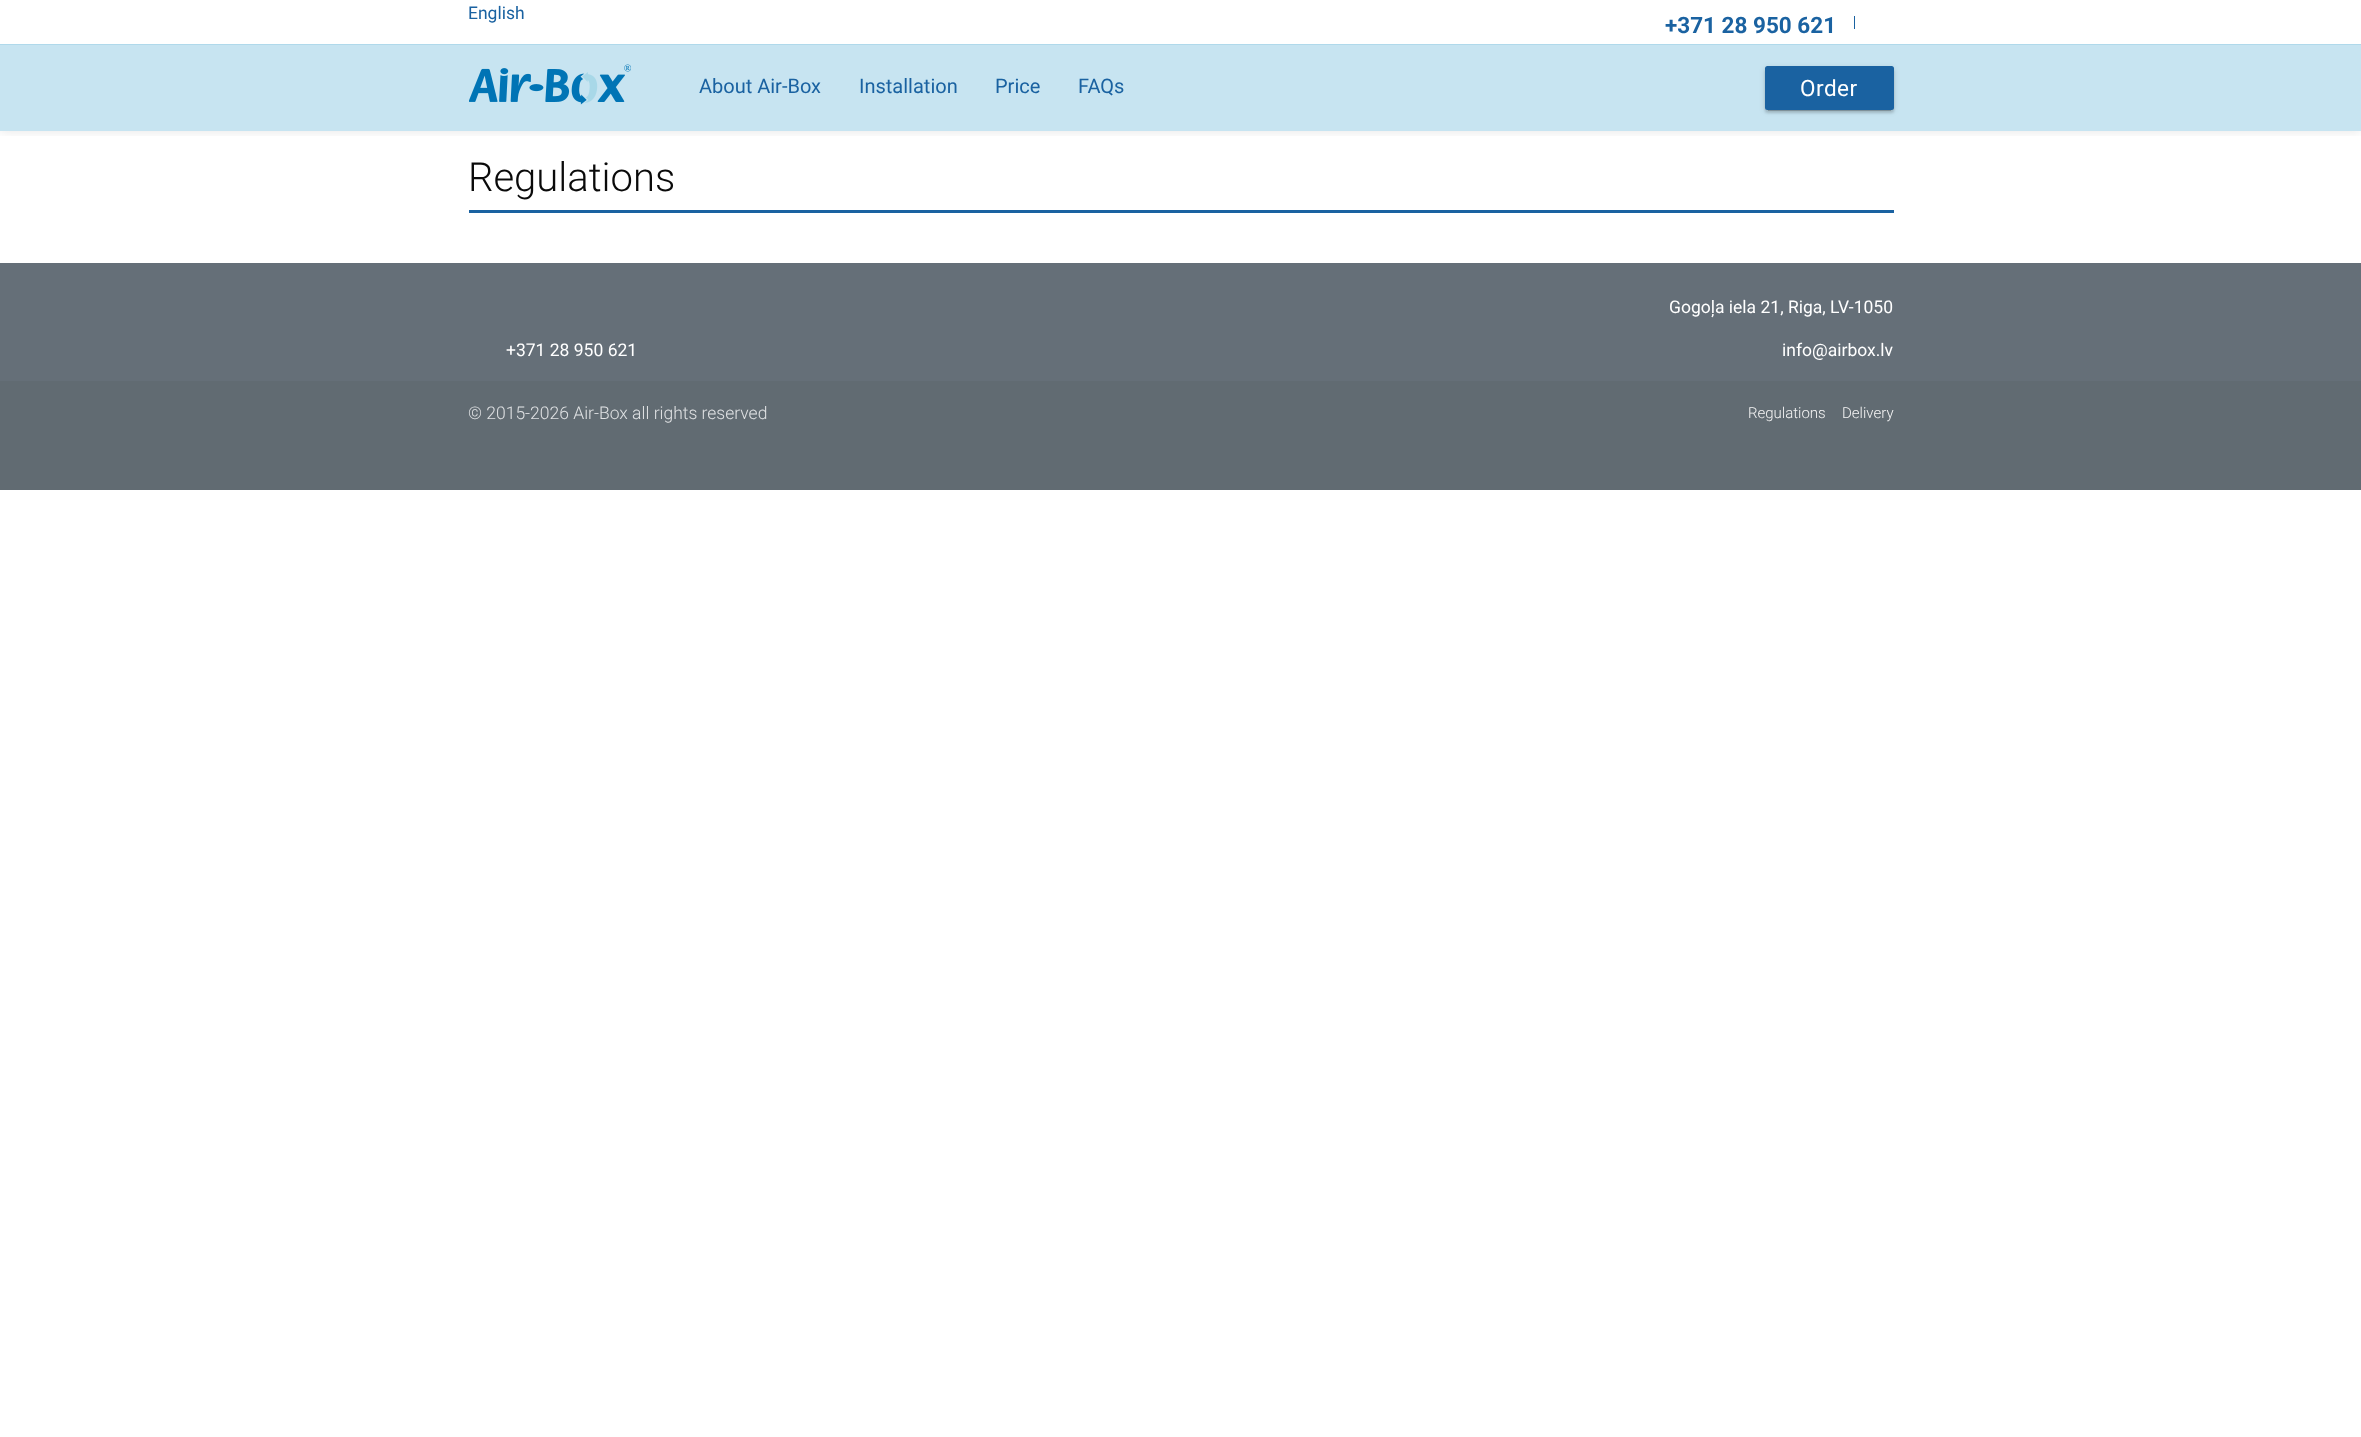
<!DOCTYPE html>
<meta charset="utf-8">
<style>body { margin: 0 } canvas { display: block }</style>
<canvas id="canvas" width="2361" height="1437"></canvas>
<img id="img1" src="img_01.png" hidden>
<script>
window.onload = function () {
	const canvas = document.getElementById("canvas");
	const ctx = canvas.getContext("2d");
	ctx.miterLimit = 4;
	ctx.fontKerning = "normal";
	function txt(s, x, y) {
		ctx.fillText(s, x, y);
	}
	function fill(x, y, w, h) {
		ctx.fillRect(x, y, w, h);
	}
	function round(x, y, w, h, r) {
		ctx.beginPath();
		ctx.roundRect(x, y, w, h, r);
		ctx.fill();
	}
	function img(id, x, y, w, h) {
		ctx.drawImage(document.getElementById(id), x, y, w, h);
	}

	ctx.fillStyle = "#FFFFFF";
	fill(0, 0, 2361, 1437);
	ctx.save();
	ctx.beginPath();
	ctx.rect(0, 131, 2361, 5);
	ctx.clip();
	ctx.fillStyle = "rgba(0, 0, 0, 0.1)";
	ctx.filter = "blur(6px)";
	ctx.beginPath();
	ctx.rect(0, 0, 2361, 131);
	ctx.fill();
	ctx.filter = "none";
	ctx.restore();
	ctx.fillStyle = "#1A62A1";
	fill(1854, 16, 1, 13);
	ctx.fillStyle = "#C7E4F1";
	fill(0, 45, 2361, 86);
	ctx.fillStyle = "#B0D9EB";
	fill(0, 44, 2361, 1);
	img("img1", 469, 64, 162, 41);
	ctx.fillStyle = "rgba(0, 0, 0, 0.2)";
	ctx.filter = "blur(0.5px)";
	ctx.beginPath();
	ctx.rect(1768, 73, 123, 38);
	ctx.fill();
	ctx.filter = "none";
	ctx.fillStyle = "rgba(0, 0, 0, 0.12)";
	ctx.filter = "blur(3px)";
	ctx.beginPath();
	ctx.roundRect(1765, 68, 129, 43, 2.5);
	ctx.fill();
	ctx.filter = "none";
	ctx.fillStyle = "rgba(0, 0, 0, 0.14)";
	ctx.filter = "blur(1px)";
	ctx.beginPath();
	ctx.roundRect(1765, 69, 129, 44, 2.5);
	ctx.fill();
	ctx.filter = "none";
	ctx.fillStyle = "#1A62A1";
	round(1765, 66, 129, 44, 2.5);
	fill(469, 210, 1425, 3);
	ctx.fillStyle = "#656F78";
	fill(0, 263, 2361, 118);
	ctx.fillStyle = "#616B72";
	fill(0, 381, 2361, 109);
	ctx.font = "17.5px Roboto";
	ctx.fillStyle = "#1A62A1";
	txt("English", 468, 19);
	ctx.font = "bold 22.5px Roboto";
	txt("+371 28 950 621", 1665, 33);
	ctx.font = "20px Roboto";
	txt("About Air-Box", 699, 93);
	txt("Installation", 859, 93);
	txt("Price", 995, 93);
	txt("FAQs", 1078, 93);
	ctx.letterSpacing = "0.5px";
	ctx.font = "22.5px Roboto";
	ctx.fillStyle = "#FFFFFF";
	txt("Order", 1800, 96);
	ctx.letterSpacing = "0px";
	ctx.font = "300 40px Roboto";
	ctx.fillStyle = "#0A0A0A";
	txt("Regulations", 468, 191);
	ctx.font = "17.5px Roboto";
	ctx.fillStyle = "#FFFFFF";
	txt("Gogoļa iela 21, Riga, LV-1050", 1669, 313);
	txt("+371 28 950 621", 506, 356);
	txt("info@airbox.lv", 1782, 356);
	ctx.font = "300 17.5px Roboto";
	ctx.fillStyle = "#DFE1E3";
	txt("© 2015-2026 Air-Box all rights reserved", 468, 419);
	ctx.font = "300 15px Roboto";
	ctx.fillStyle = "#F5F5F5";
	txt("Regulations", 1748, 418);
	txt("Delivery", 1842, 418);
};
</script>
